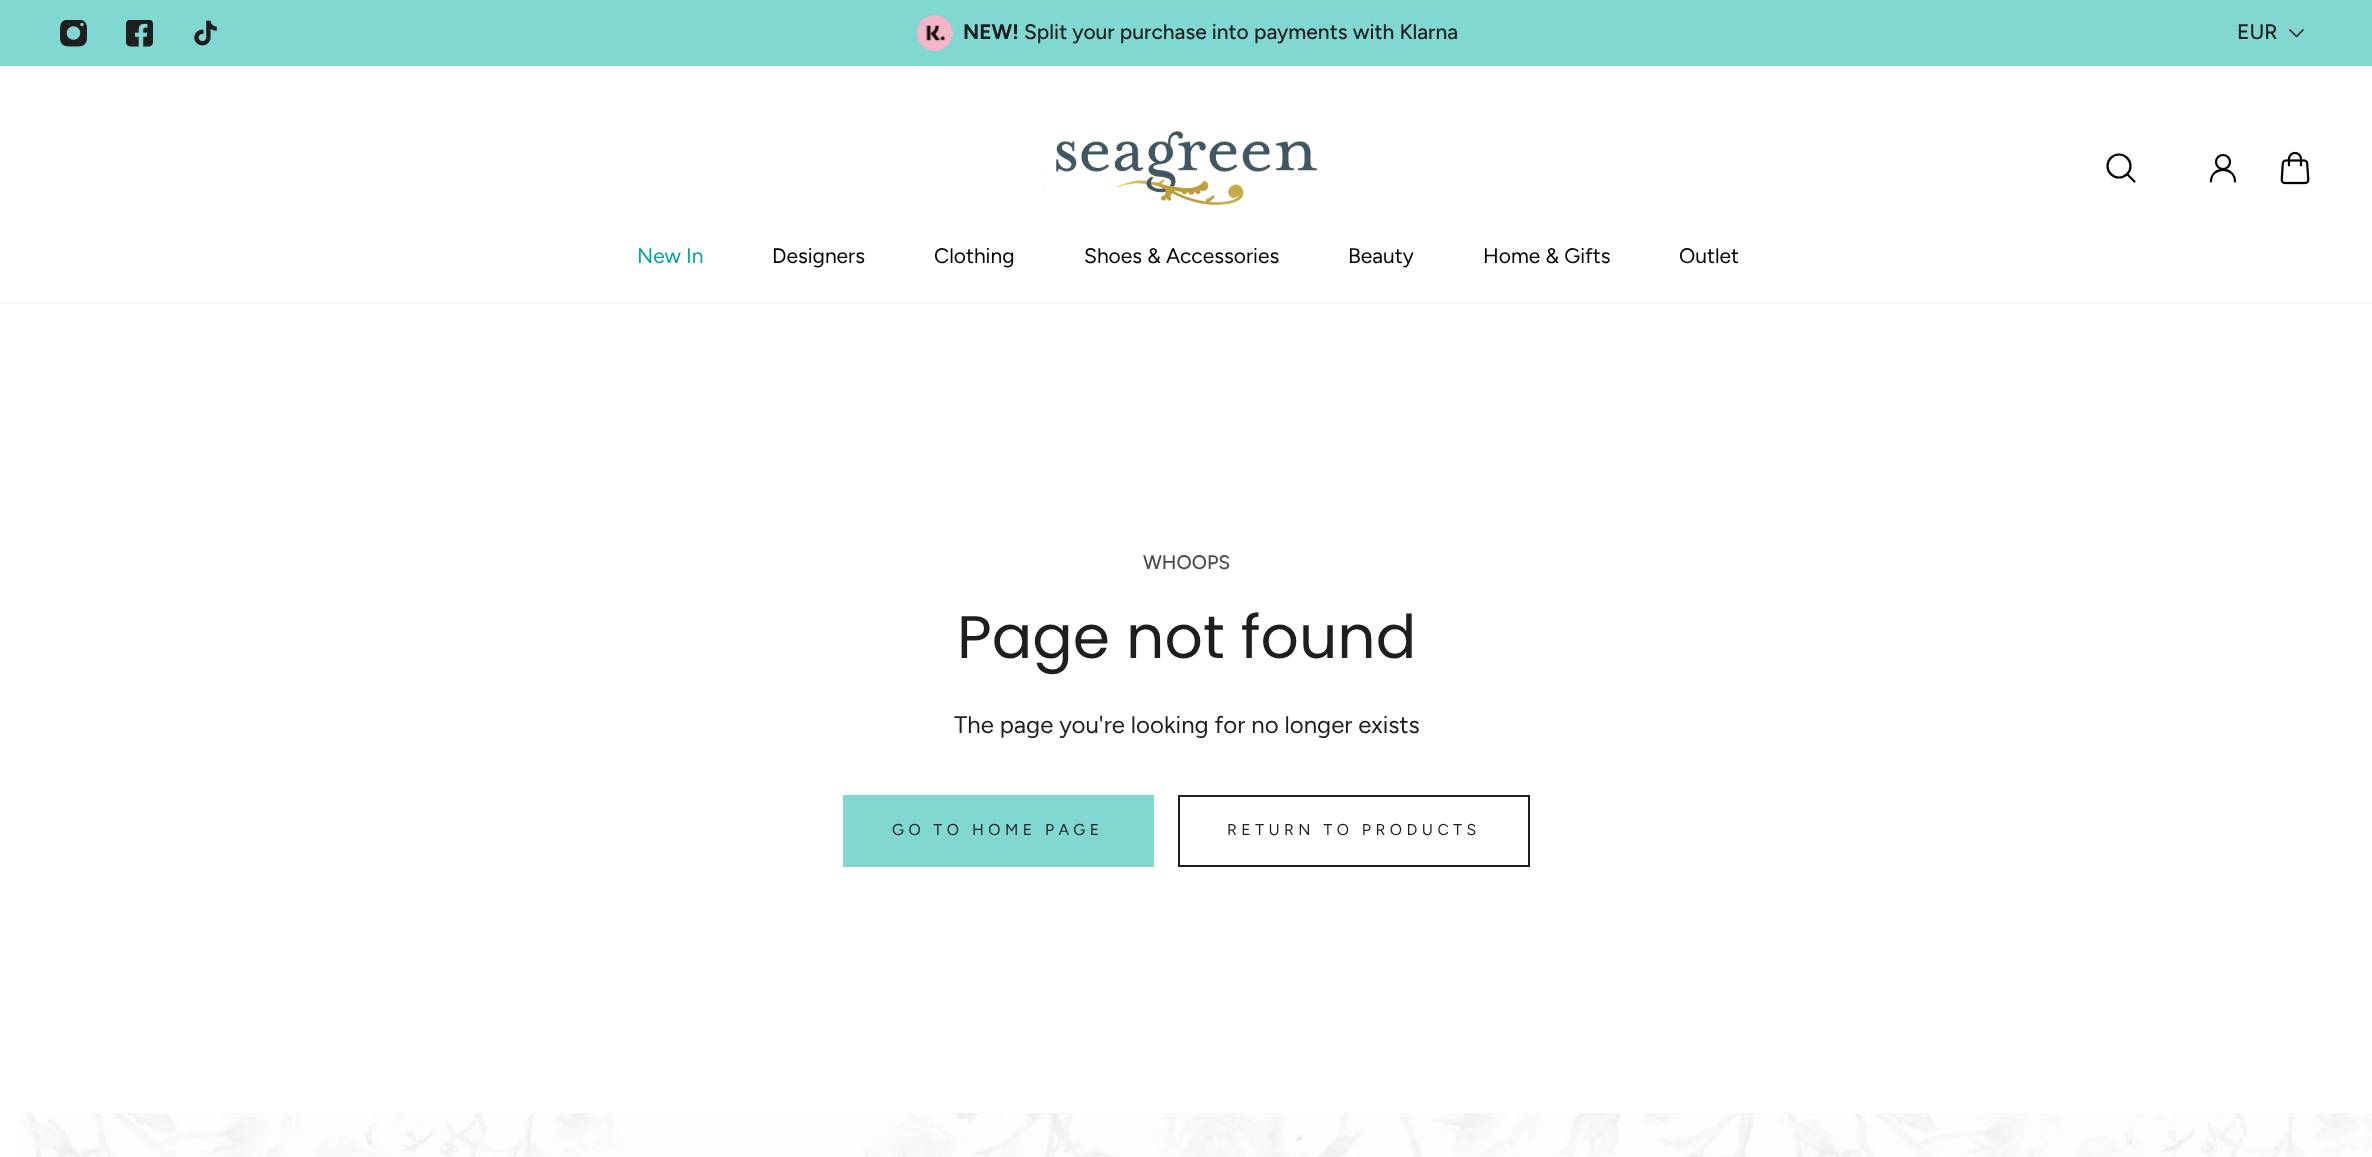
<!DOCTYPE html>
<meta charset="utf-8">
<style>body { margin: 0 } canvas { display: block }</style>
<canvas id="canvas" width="2372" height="1157"></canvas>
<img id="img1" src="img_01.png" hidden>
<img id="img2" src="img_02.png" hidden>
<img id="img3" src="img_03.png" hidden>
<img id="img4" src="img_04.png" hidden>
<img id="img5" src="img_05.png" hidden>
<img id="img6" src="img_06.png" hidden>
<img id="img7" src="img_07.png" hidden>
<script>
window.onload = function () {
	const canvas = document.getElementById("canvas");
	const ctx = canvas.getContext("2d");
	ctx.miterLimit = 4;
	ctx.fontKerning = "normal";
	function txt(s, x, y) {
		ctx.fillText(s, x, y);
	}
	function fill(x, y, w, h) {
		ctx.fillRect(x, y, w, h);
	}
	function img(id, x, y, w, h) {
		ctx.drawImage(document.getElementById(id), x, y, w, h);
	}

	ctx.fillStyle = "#FFFFFF";
	fill(0, 0, 2372, 1157);
	ctx.fillStyle = "#81D8D0";
	fill(0, 0, 2372, 66);
	img("img1", 60, 20, 27, 27);
	img("img2", 126, 20, 27, 27);
	img("img3", 194, 20, 23, 26);
	img("img4", 916, 15, 37, 36);
	ctx.beginPath();
	ctx.moveTo(2303.5, 29.5);
	ctx.lineTo(2296.5, 36.5);
	ctx.lineTo(2289.5, 29.5);
	ctx.strokeStyle = "#1E1E1E";
	ctx.lineWidth = 1.5;
	ctx.stroke();
	ctx.fillStyle = "#F6F6F6";
	fill(0, 302, 2372, 2);
	img("img5", 1042, 131, 276, 74);
	ctx.beginPath();
	ctx.arc(2119, 166, 11.5, 0, Math.PI * 2);
	ctx.strokeStyle = "#000000";
	ctx.lineWidth = 2.2;
	ctx.stroke();
	ctx.beginPath();
	ctx.moveTo(2127.5, 174.5);
	ctx.lineTo(2134.5, 181.5);
	ctx.lineCap = "round";
	ctx.lineJoin = "round";
	ctx.stroke();
	ctx.beginPath();
	ctx.arc(2223, 162, 7, 0, Math.PI * 2);
	ctx.stroke();
	ctx.beginPath();
	ctx.moveTo(2235, 181.5);
	ctx.bezierCurveTo(2235, 166, 2211, 166, 2211, 181.5);
	ctx.stroke();
	img("img6", 2280, 151, 30, 34);
	ctx.fillStyle = "#81D8D0";
	fill(843, 795, 311, 72);
	ctx.strokeStyle = "#1E1E1E";
	ctx.lineWidth = 2;
	ctx.lineJoin = "miter";
	ctx.strokeRect(1179, 796, 350, 70);
	img("img7", 20, 1113, 2352, 44);
	ctx.font = "bold 21px Figtree";
	ctx.fillStyle = "#1E1E1E";
	txt("NEW!", 963, 39);
	ctx.font = "500 21px Figtree";
	txt("Split your purchase into payments with Klarna", 1024, 39);
	txt("EUR", 2237, 39);
	ctx.font = "21px Figtree";
	ctx.fillStyle = "#0DA19A";
	txt("New In", 637, 263);
	ctx.fillStyle = "#000000";
	txt("Designers", 772, 263);
	txt("Clothing", 934, 263);
	txt("Shoes & Accessories", 1084, 263);
	txt("Beauty", 1348, 263);
	txt("Home & Gifts", 1483, 263);
	txt("Outlet", 1679, 263);
	ctx.font = "500 19.5px Figtree";
	ctx.fillStyle = "#4B4B4B";
	txt("WHOOPS", 1143, 569);
	ctx.font = "60px Poppins";
	ctx.fillStyle = "#1E1E1E";
	txt("Page not found", 957, 658);
	ctx.font = "24px Figtree";
	txt("The page you're looking for no longer exists", 954, 733);
	ctx.letterSpacing = "4.5px";
	ctx.font = "15.75px Figtree";
	txt("GO TO HOME PAGE", 892, 835);
	txt("RETURN TO PRODUCTS", 1227, 835);
};
</script>
